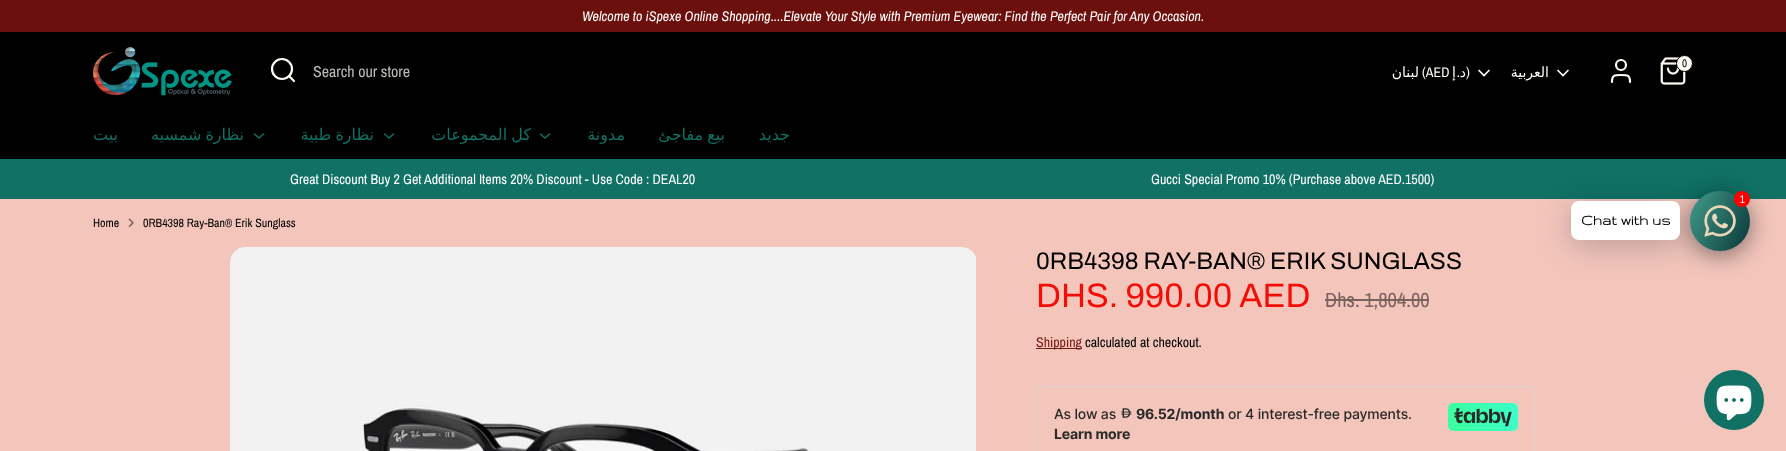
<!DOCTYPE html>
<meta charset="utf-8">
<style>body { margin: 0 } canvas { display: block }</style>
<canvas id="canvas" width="1786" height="451"></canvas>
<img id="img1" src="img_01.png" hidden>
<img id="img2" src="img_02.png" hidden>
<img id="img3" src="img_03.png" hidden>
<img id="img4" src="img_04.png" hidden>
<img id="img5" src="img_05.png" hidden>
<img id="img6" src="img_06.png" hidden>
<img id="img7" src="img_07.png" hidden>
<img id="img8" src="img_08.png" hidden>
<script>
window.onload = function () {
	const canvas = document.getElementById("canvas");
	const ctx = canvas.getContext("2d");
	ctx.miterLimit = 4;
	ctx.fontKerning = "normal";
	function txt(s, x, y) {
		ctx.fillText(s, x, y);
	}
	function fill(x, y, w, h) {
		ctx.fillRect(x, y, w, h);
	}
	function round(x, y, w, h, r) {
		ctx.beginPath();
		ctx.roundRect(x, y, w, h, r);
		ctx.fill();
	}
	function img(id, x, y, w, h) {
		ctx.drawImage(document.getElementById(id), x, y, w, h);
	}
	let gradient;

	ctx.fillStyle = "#F4C6BB";
	fill(0, 0, 1786, 451);
	ctx.fillStyle = "#6C100D";
	fill(0, 0, 1786, 32);
	ctx.fillStyle = "#000000";
	fill(0, 32, 1786, 127);
	img("img1", 93, 47, 139, 49);
	ctx.beginPath();
	ctx.arc(282, 69, 10, 0, Math.PI * 2);
	ctx.strokeStyle = "#FFFBF4";
	ctx.lineWidth = 2.2;
	ctx.stroke();
	ctx.beginPath();
	ctx.moveTo(294, 81);
	ctx.lineTo(289, 76);
	ctx.lineCap = "round";
	ctx.lineJoin = "round";
	ctx.stroke();
	ctx.beginPath();
	ctx.moveTo(1630, 82);
	ctx.bezierCurveTo(1630, 75, 1627.5, 75, 1621, 75);
	ctx.bezierCurveTo(1614.5, 75, 1612, 75, 1612, 82);
	ctx.stroke();
	ctx.beginPath();
	ctx.arc(1621, 65, 5, 0, Math.PI * 2);
	ctx.stroke();
	img("img2", 1660, 57, 26, 28);
	ctx.fillStyle = "#FFFBF4";
	ctx.beginPath();
	ctx.arc(1684.5, 63.5, 8, 0, Math.PI * 2);
	ctx.fill();
	ctx.strokeStyle = "#000000";
	ctx.lineWidth = 1;
	ctx.stroke();
	ctx.beginPath();
	ctx.moveTo(1479, 70.5);
	ctx.lineTo(1484, 75.5);
	ctx.lineTo(1489, 70.5);
	ctx.strokeStyle = "#FFFBF4";
	ctx.lineWidth = 1.7;
	ctx.lineJoin = "miter";
	ctx.stroke();
	ctx.beginPath();
	ctx.moveTo(1558, 70.5);
	ctx.lineTo(1563, 75.5);
	ctx.lineTo(1568, 70.5);
	ctx.stroke();
	ctx.beginPath();
	ctx.moveTo(254.5, 134);
	ctx.lineTo(259, 138);
	ctx.lineTo(263.5, 134);
	ctx.strokeStyle = "#107164";
	ctx.lineWidth = 1.5;
	ctx.stroke();
	ctx.beginPath();
	ctx.moveTo(384.5, 134);
	ctx.lineTo(389, 138);
	ctx.lineTo(393.5, 134);
	ctx.stroke();
	ctx.beginPath();
	ctx.moveTo(540.5, 134);
	ctx.lineTo(545, 138);
	ctx.lineTo(549.5, 134);
	ctx.stroke();
	ctx.fillStyle = "#107164";
	fill(0, 159, 1786, 40);
	img("img3", 128, 218, 6, 10);
	ctx.fillStyle = "rgba(2, 6, 16, 0.5)";
	ctx.filter = "blur(12px)";
	ctx.beginPath();
	ctx.roundRect(1690, 195, 60, 60, 30);
	ctx.fill();
	ctx.filter = "none";
	gradient = ctx.createLinearGradient(1684, 204, 1756, 238);
	gradient.addColorStop(0, "#44A08D");
	gradient.addColorStop(1, "#093637");
	ctx.fillStyle = gradient;
	ctx.beginPath();
	ctx.arc(1720, 221, 30, 0, Math.PI * 2);
	ctx.fill();
	ctx.fillStyle = "rgba(0, 18, 46, 0.24)";
	ctx.filter = "blur(16px)";
	ctx.beginPath();
	ctx.roundRect(1571, 207, 109, 39, 8);
	ctx.fill();
	ctx.filter = "none";
	img("img4", 1704, 205, 32, 32);
	ctx.fillStyle = "#FF0000";
	ctx.beginPath();
	ctx.arc(1742, 199, 8, 0, Math.PI * 2);
	ctx.fill();
	ctx.fillStyle = "#FFFFFF";
	round(1571, 201, 109, 39, 8);
	img("img5", 230, 247, 746, 204);
	ctx.fillStyle = "#7A635E";
	fill(1325, 299, 104, 2);
	ctx.fillStyle = "#761A16";
	fill(1036, 348, 46, 1);
	ctx.beginPath();
	ctx.roundRect(1037.5, 386.5, 497, 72, 6.5);
	ctx.strokeStyle = "#D6D6D3";
	ctx.lineWidth = 1;
	ctx.stroke();
	img("img6", 1121, 408, 11, 10);
	img("img7", 1448, 403, 70, 28);
	ctx.fillStyle = "#107164";
	ctx.beginPath();
	ctx.arc(1734, 400, 30, 0, Math.PI * 2);
	ctx.fill();
	img("img8", 1716, 385, 36, 36);
	ctx.font = "italic 14px Archivo Narrow";
	ctx.fillStyle = "#FFFFFF";
	txt("Welcome to iSpexe Online Shopping....Elevate Your Style with Premium Eyewear: Find the Perfect Pair for Any Occasion.", 582, 21);
	ctx.font = "16px Archivo Narrow";
	ctx.fillStyle = "#BFBCB7";
	txt("Search our store", 313, 77);
	ctx.font = "11px Archivo Narrow";
	ctx.fillStyle = "#000000";
	txt("0", 1682, 67);
	ctx.direction = "rtl";
	ctx.font = "14px DejaVu Sans";
	ctx.fillStyle = "#FFFBF4";
	txt("لبنان", 1419, 77);
	ctx.direction = "ltr";
	ctx.font = "14px Archivo Narrow";
	txt("(AED", 1422, 77);
	ctx.direction = "rtl";
	ctx.font = "14px DejaVu Sans";
	txt("إ", 1456, 77);
	ctx.font = "14px Archivo Narrow";
	txt(".", 1460, 77);
	ctx.font = "14px DejaVu Sans";
	txt("د", 1466, 77);
	ctx.direction = "ltr";
	ctx.font = "14px Archivo Narrow";
	txt(")", 1466, 77);
	ctx.direction = "rtl";
	ctx.font = "14px DejaVu Sans";
	txt("العربية", 1549, 77);
	ctx.font = "16px DejaVu Sans";
	ctx.fillStyle = "#107164";
	txt("بيت", 118, 140);
	ctx.wordSpacing = "-1px";
	txt("نظارة شمسيه", 244, 140);
	txt("نظارة طبية", 374, 140);
	txt("كل المجموعات", 531, 140);
	ctx.wordSpacing = "0px";
	txt("مدونة", 625, 140);
	ctx.wordSpacing = "-1px";
	txt("بيع مفاجئ", 725, 140);
	ctx.wordSpacing = "0px";
	txt("جديد", 790, 140);
	ctx.direction = "ltr";
	ctx.font = "14px Archivo Narrow";
	ctx.fillStyle = "#FFFFFF";
	txt("Great Discount Buy 2 Get Additional Items 20% Discount - Use Code : DEAL20", 290, 184);
	txt("Gucci Special Promo 10% (Purchase above AED.1500)", 1151, 184);
	ctx.font = "12px Archivo Narrow";
	ctx.fillStyle = "#000000";
	txt("Home", 93, 227);
	txt("0RB4398 Ray-Ban® Erik Sunglass", 143, 227);
	ctx.font = "11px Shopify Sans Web";
	ctx.fillStyle = "#FFFFFF";
	txt("1", 1740, 203);
	ctx.font = "bold 16px Gruppo";
	ctx.fillStyle = "#000000";
	txt("Chat with us", 1581, 225);
	ctx.font = "24px Archivo";
	txt("0RB4398 RAY-BAN® ERIK SUNGLASS", 1036, 269);
	ctx.font = "34px Archivo";
	ctx.fillStyle = "#F40D06";
	txt("DHS. 990.00 AED", 1036, 307);
	ctx.font = "20.5px Archivo Narrow";
	ctx.fillStyle = "#7A635E";
	txt("Dhs. 1,804.00", 1325, 307);
	ctx.font = "14px Archivo Narrow";
	ctx.fillStyle = "#761A16";
	txt("Shipping", 1036, 347);
	ctx.fillStyle = "#000000";
	txt("calculated at checkout.", 1085, 347);
	ctx.letterSpacing = "-0.15px";
	ctx.font = "500 14px Inter";
	ctx.fillStyle = "#292929";
	txt("As low as", 1054, 419);
	ctx.font = "bold 14px Inter";
	txt("96.52/month", 1136, 419);
	ctx.font = "500 14px Inter";
	txt("or 4 interest-free payments.", 1228, 419);
	ctx.font = "bold 14px Inter";
	txt("Learn more", 1054, 439);
};
</script>
